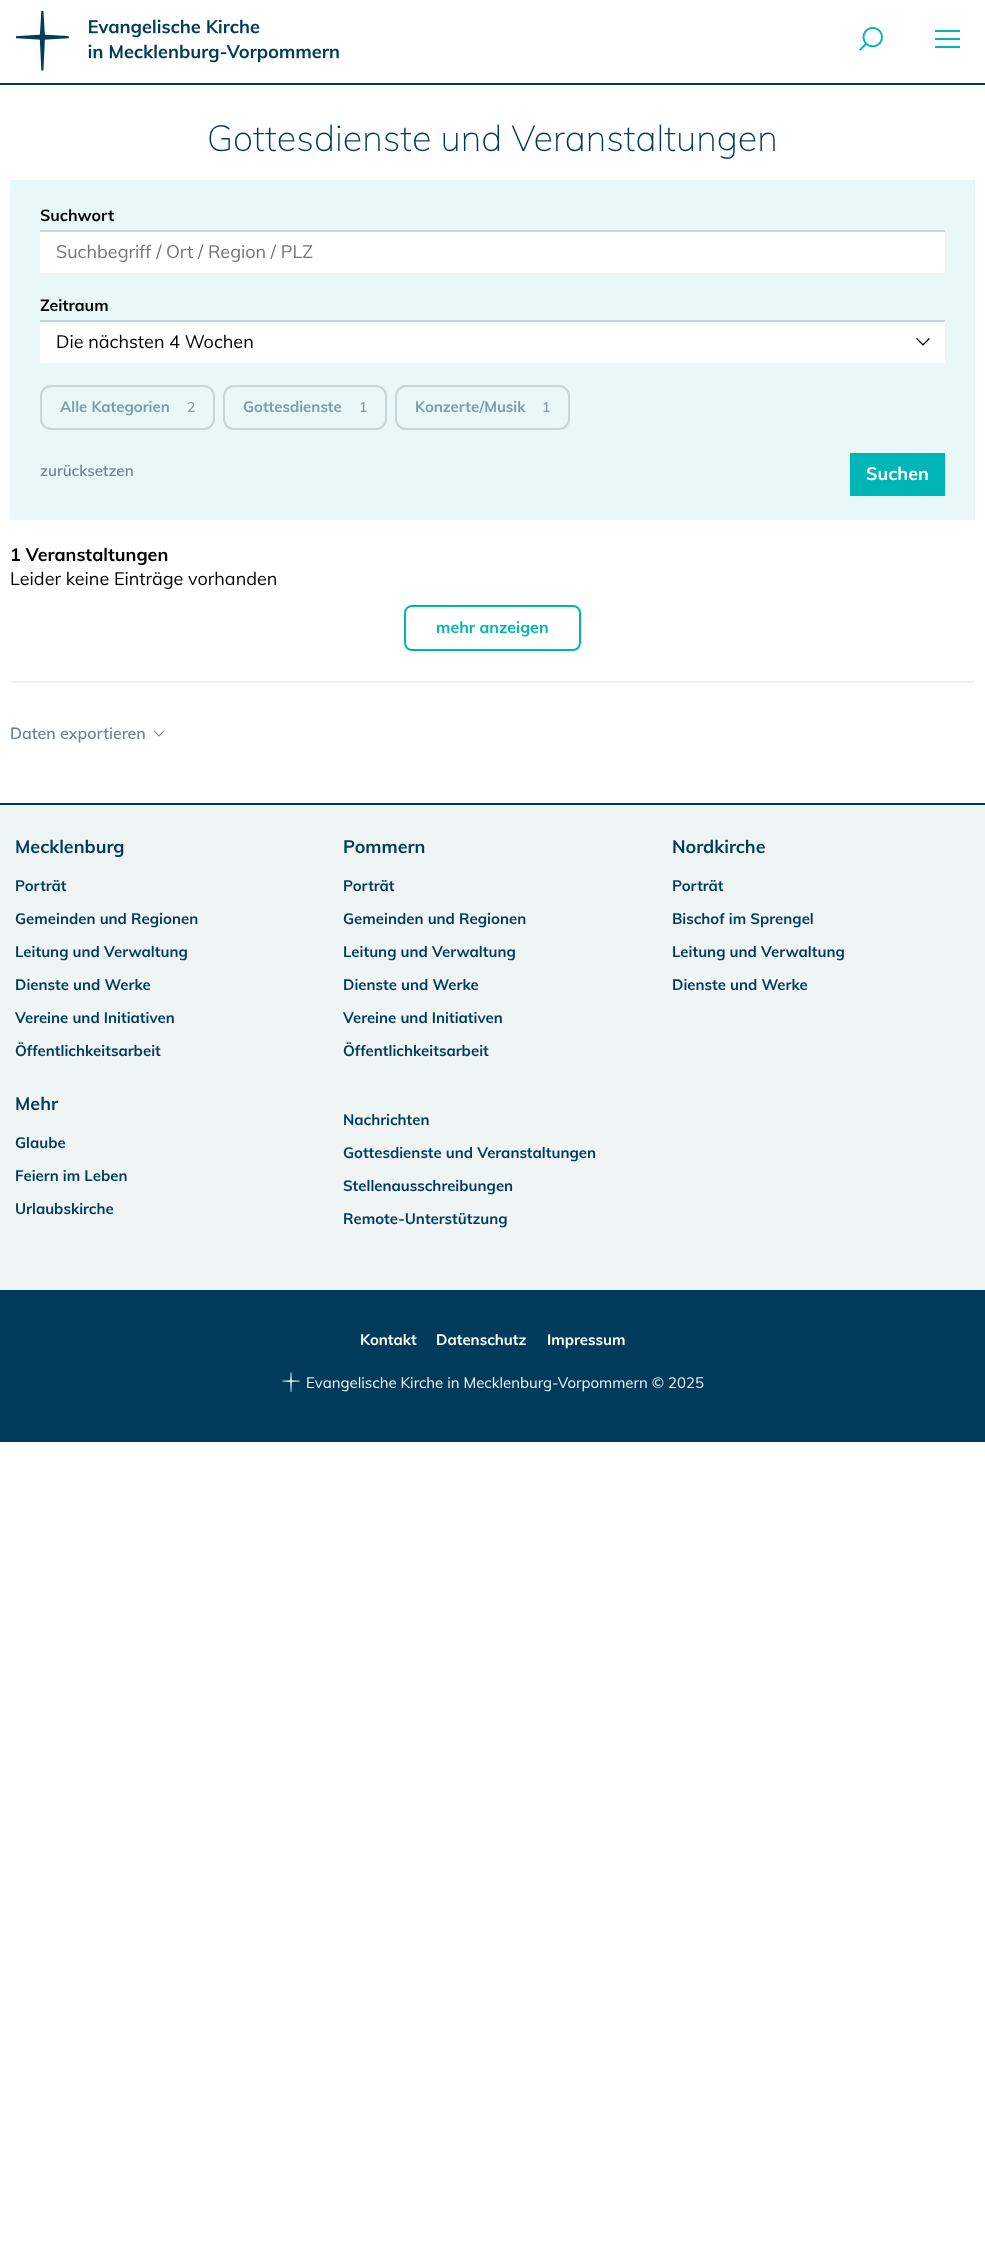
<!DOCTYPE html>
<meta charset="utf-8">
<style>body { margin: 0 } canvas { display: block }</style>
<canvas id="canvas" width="985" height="2244"></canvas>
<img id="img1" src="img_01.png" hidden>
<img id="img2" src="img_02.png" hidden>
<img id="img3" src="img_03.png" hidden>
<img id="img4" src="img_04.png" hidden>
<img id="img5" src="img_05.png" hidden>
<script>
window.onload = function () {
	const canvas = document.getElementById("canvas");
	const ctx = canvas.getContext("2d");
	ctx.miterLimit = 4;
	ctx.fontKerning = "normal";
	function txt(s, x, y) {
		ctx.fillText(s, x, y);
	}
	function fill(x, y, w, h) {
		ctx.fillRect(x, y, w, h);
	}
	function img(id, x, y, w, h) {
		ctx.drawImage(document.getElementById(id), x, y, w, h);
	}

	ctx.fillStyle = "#FFFFFF";
	fill(0, 0, 985, 2244);
	img("img1", 16, 10, 323, 61);
	img("img2", 859, 27, 24, 24);
	ctx.fillStyle = "#00B5B5";
	fill(935, 30, 25, 2);
	fill(935, 38, 25, 2);
	fill(935, 46, 25, 2);
	ctx.fillStyle = "#003B5B";
	fill(0, 83, 985, 2);
	ctx.fillStyle = "#E8F7F7";
	fill(10, 180, 965, 340);
	ctx.fillStyle = "#FFFFFF";
	fill(40, 232, 905, 41);
	ctx.fillStyle = "#C3D6DA";
	fill(40, 230, 905, 2);
	ctx.fillStyle = "#FFFFFF";
	fill(40, 322, 905, 41);
	ctx.fillStyle = "#C3D6DA";
	fill(40, 320, 905, 2);
	img("img3", 916, 338, 14, 8);
	ctx.beginPath();
	ctx.roundRect(41, 386, 173, 43, 10);
	ctx.strokeStyle = "#C3D6DA";
	ctx.lineWidth = 2;
	ctx.stroke();
	ctx.beginPath();
	ctx.roundRect(224, 386, 162, 43, 10);
	ctx.stroke();
	ctx.beginPath();
	ctx.roundRect(396, 386, 173, 43, 10);
	ctx.stroke();
	ctx.fillStyle = "#00B5B5";
	fill(850, 453, 95, 43);
	ctx.beginPath();
	ctx.roundRect(405, 606, 175, 44, 7);
	ctx.strokeStyle = "#00B5B5";
	ctx.stroke();
	ctx.fillStyle = "#EFEFEF";
	fill(10, 681, 965, 2);
	img("img4", 153, 730, 12, 7);
	ctx.fillStyle = "#EFF4F4";
	fill(0, 805, 985, 485);
	ctx.fillStyle = "#003B5B";
	fill(0, 803, 985, 2);
	fill(0, 1290, 985, 152);
	img("img5", 282, 1372, 18, 21);
	ctx.font = "200 36px Muli";
	txt("Gottesdienste und Veranstaltungen", 207, 151);
	ctx.font = "bold 16px Muli";
	ctx.fillStyle = "#000000";
	txt("Suchwort", 40, 221);
	ctx.font = "18px Muli";
	ctx.fillStyle = "#757575";
	txt("Suchbegriff / Ort / Region / PLZ", 56, 258);
	ctx.font = "bold 16px Muli";
	ctx.fillStyle = "#000000";
	txt("Zeitraum", 40, 311);
	ctx.font = "18px Muli";
	txt("Die nächsten 4 Wochen", 56, 348);
	ctx.font = "bold 15px Muli";
	ctx.fillStyle = "#7F9AA8";
	txt("Alle Kategorien", 60, 412);
	ctx.font = "600 14px Muli";
	txt("2", 187, 412);
	ctx.font = "bold 15px Muli";
	txt("Gottesdienste", 243, 412);
	ctx.font = "600 14px Muli";
	txt("1", 359, 412);
	ctx.font = "bold 15px Muli";
	txt("Konzerte/Musik", 415, 412);
	ctx.font = "600 14px Muli";
	txt("1", 542, 412);
	ctx.font = "600 15.25px Muli";
	ctx.fillStyle = "#6F8490";
	txt("zurücksetzen", 40, 476);
	ctx.font = "bold 18px Muli";
	ctx.fillStyle = "#FFFFFF";
	txt("Suchen", 866, 480);
	ctx.fillStyle = "#000000";
	txt("1 Veranstaltungen", 10, 561);
	ctx.font = "18px Muli";
	txt("Leider keine Einträge vorhanden", 10, 585);
	ctx.font = "bold 16px Muli";
	ctx.fillStyle = "#00B5B5";
	txt("mehr anzeigen", 436, 633);
	ctx.font = "600 16px Muli";
	ctx.fillStyle = "#6F8490";
	txt("Daten exportieren", 10, 739);
	ctx.font = "bold 18px Muli";
	ctx.fillStyle = "#003B5B";
	txt("Mecklenburg", 15, 853);
	ctx.font = "bold 15px Muli";
	txt("Porträt", 15, 891);
	txt("Gemeinden und Regionen", 15, 924);
	txt("Leitung und Verwaltung", 15, 957);
	txt("Dienste und Werke", 15, 990);
	txt("Vereine und Initiativen", 15, 1023);
	txt("Öffentlichkeitsarbeit", 15, 1056);
	ctx.font = "bold 18px Muli";
	txt("Pommern", 343, 853);
	ctx.font = "bold 15px Muli";
	txt("Porträt", 343, 891);
	txt("Gemeinden und Regionen", 343, 924);
	txt("Leitung und Verwaltung", 343, 957);
	txt("Dienste und Werke", 343, 990);
	txt("Vereine und Initiativen", 343, 1023);
	txt("Öffentlichkeitsarbeit", 343, 1056);
	ctx.font = "bold 18px Muli";
	txt("Nordkirche", 672, 853);
	ctx.font = "bold 15px Muli";
	txt("Porträt", 672, 891);
	txt("Bischof im Sprengel", 672, 924);
	txt("Leitung und Verwaltung", 672, 957);
	txt("Dienste und Werke", 672, 990);
	ctx.font = "bold 18px Muli";
	txt("Mehr", 15, 1110);
	ctx.font = "bold 15px Muli";
	txt("Glaube", 15, 1148);
	txt("Feiern im Leben", 15, 1181);
	txt("Urlaubskirche", 15, 1214);
	txt("Nachrichten", 343, 1125);
	txt("Gottesdienste und Veranstaltungen", 343, 1158);
	txt("Stellenausschreibungen", 343, 1191);
	txt("Remote-Unterstützung", 343, 1224);
	ctx.fillStyle = "#FFFFFF";
	txt("Kontakt", 360, 1345);
	txt("Datenschutz", 436, 1345);
	txt("Impressum", 547, 1345);
	ctx.font = "15px Muli";
	ctx.fillStyle = "#EFF4F4";
	txt("Evangelische Kirche in Mecklenburg-Vorpommern © 2025", 306, 1388);
};
</script>
